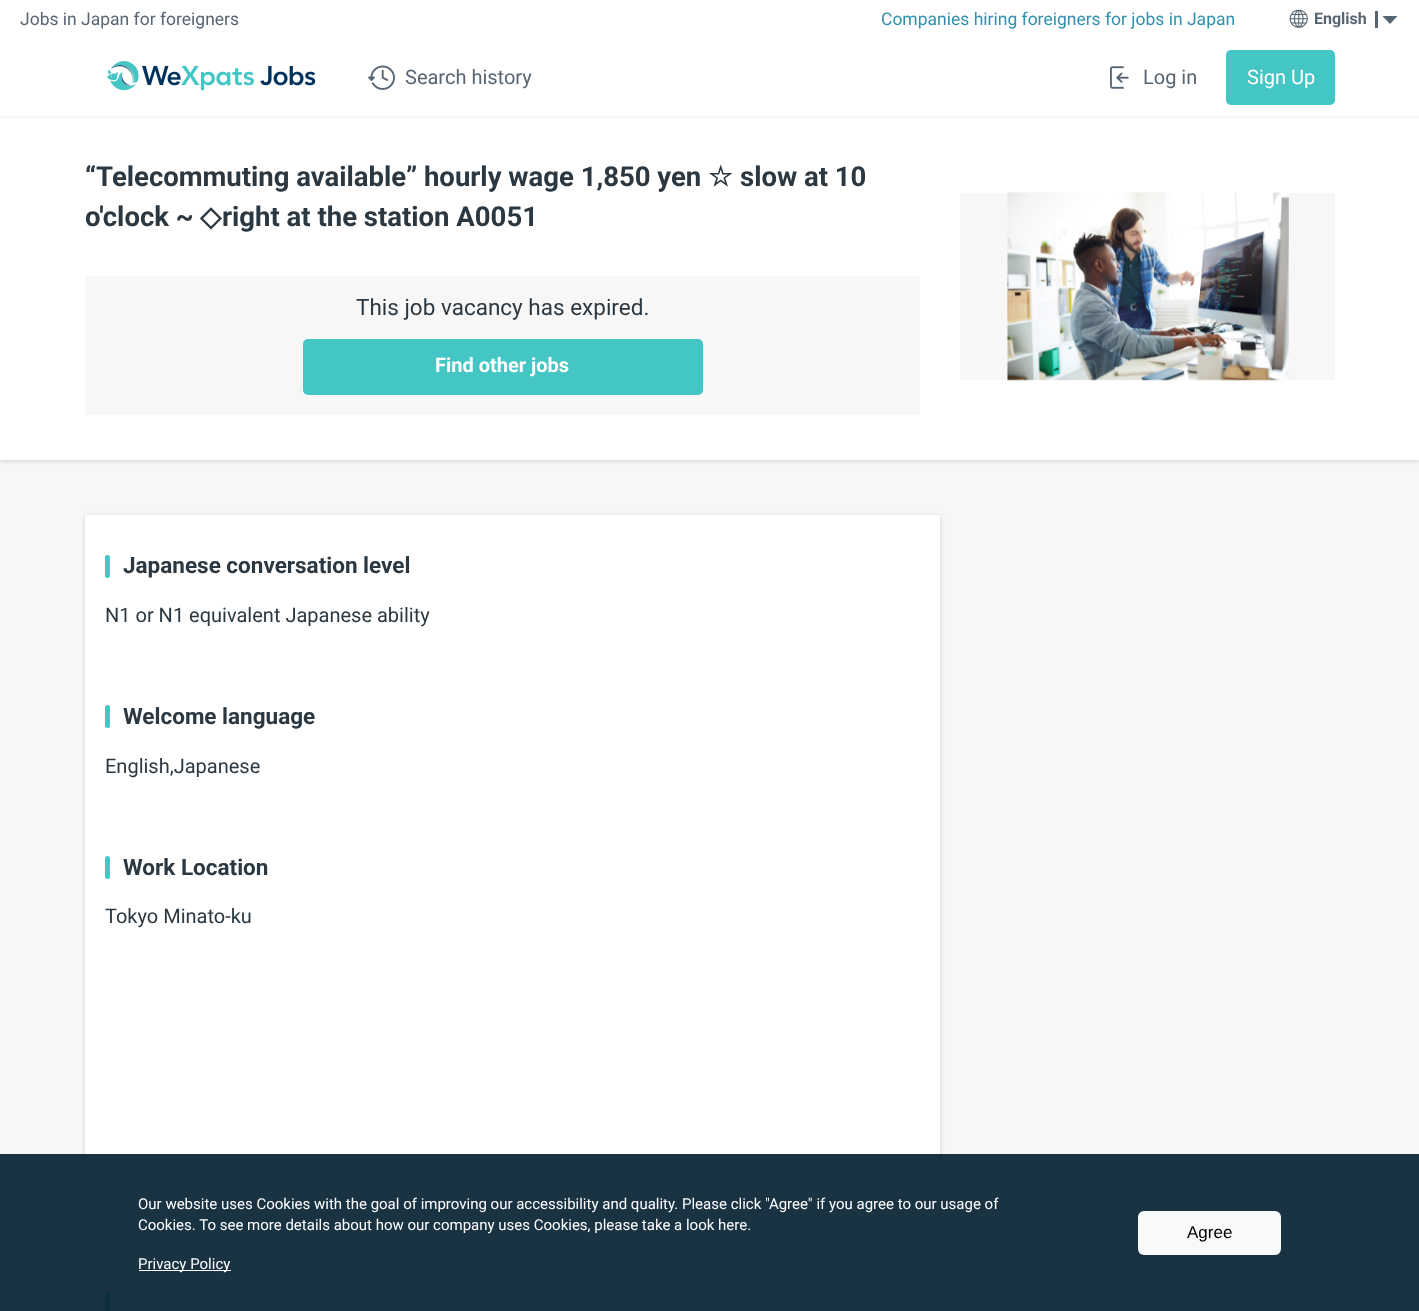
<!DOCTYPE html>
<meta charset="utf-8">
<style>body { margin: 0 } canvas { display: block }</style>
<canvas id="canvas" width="1419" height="1311"></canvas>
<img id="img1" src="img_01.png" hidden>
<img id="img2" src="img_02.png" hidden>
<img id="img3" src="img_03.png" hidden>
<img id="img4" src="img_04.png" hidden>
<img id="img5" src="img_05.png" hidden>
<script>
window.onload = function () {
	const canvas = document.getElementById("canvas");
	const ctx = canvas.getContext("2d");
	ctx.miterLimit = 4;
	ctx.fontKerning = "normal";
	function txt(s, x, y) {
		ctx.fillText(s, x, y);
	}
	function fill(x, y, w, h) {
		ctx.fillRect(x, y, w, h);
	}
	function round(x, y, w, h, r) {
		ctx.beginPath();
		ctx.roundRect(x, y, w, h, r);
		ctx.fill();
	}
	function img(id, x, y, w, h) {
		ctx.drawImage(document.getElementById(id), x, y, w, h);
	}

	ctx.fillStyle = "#FFFFFF";
	fill(0, 0, 1419, 1311);
	img("img1", 1289, 9, 19, 19);
	ctx.fillStyle = "#576573";
	fill(1375, 11, 3, 17);
	ctx.beginPath();
	ctx.moveTo(1382.5, 16);
	ctx.lineTo(1397.5, 16);
	ctx.lineTo(1390, 24);
	ctx.closePath();
	ctx.fill();
	img("img2", 107, 61, 209, 30);
	img("img3", 368, 65, 27, 25);
	img("img4", 1110, 66, 19, 23);
	ctx.fillStyle = "#44C6C5";
	round(1226, 50, 109, 55, 5);
	ctx.fillStyle = "#F7F7F7";
	fill(0, 460, 1419, 851);
	ctx.fillStyle = "rgba(0, 0, 0, 0.16)";
	ctx.filter = "blur(2.5px)";
	ctx.beginPath();
	ctx.rect(0, 119, 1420, 342);
	ctx.fill();
	ctx.filter = "none";
	ctx.fillStyle = "#FFFFFF";
	fill(0, 118, 1419, 342);
	ctx.fillStyle = "#F7F7F7";
	fill(85, 276, 835, 139);
	ctx.fillStyle = "#44C6C5";
	round(303, 339, 400, 56, 5);
	ctx.fillStyle = "#F7F7F7";
	fill(960, 193, 375, 187);
	img("img5", 1007, 192, 282, 189);
	ctx.fillStyle = "rgba(0, 0, 0, 0.16)";
	ctx.filter = "blur(2.5px)";
	ctx.beginPath();
	ctx.rect(85, 516, 855, 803);
	ctx.fill();
	ctx.filter = "none";
	ctx.fillStyle = "#FFFFFF";
	fill(85, 515, 855, 796);
	ctx.fillStyle = "#44C6C5";
	round(105, 555, 5, 23, 2.5);
	round(105, 705, 5, 23, 2.5);
	round(105, 856, 5, 23, 2.5);
	round(105, 1291, 5, 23, 2.5);
	ctx.fillStyle = "rgba(7, 34, 51, 0.92)";
	fill(0, 1154, 1419, 157);
	ctx.fillStyle = "#FFFFFF";
	fill(139, 1270, 92, 1);
	ctx.fillStyle = "#F8F9F9";
	round(1138, 1211, 143, 44, 6);
	ctx.font = "17.5px Roboto";
	ctx.fillStyle = "#576573";
	txt("Jobs in Japan for foreigners", 20, 25);
	ctx.fillStyle = "#318FB0";
	txt("Companies hiring foreigners for jobs in Japan", 881, 25);
	ctx.font = "bold 16px Roboto";
	ctx.fillStyle = "#576573";
	txt("English", 1314, 24);
	ctx.font = "20px Roboto";
	txt("Search history", 405, 84);
	txt("Log in", 1143, 84);
	ctx.fillStyle = "#FFFFFF";
	txt("Sign Up", 1247, 84);
	ctx.font = "bold 27.5px Roboto";
	ctx.fillStyle = "#2C3841";
	txt("“Telecommuting available” hourly wage 1,850 yen", 85, 186);
	ctx.font = "bold 27.5px DejaVu Sans";
	txt("☆", 708, 186);
	ctx.font = "bold 27.5px Roboto";
	txt("slow at 10", 740, 186);
	txt("o'clock ~", 85, 226);
	ctx.font = "bold 27.5px DejaVu Sans";
	txt("◇", 200, 226);
	ctx.font = "bold 27.5px Roboto";
	txt("right at the station A0051", 222, 226);
	ctx.font = "22.5px Roboto";
	txt("This job vacancy has expired.", 356, 315);
	ctx.font = "bold 20px Roboto";
	ctx.fillStyle = "#FFFFFF";
	txt("Find other jobs", 435, 372);
	ctx.font = "bold 22.5px Roboto";
	ctx.fillStyle = "#2C3841";
	txt("Japanese conversation level", 123, 573);
	ctx.font = "20px Roboto";
	txt("N1 or N1 equivalent Japanese ability", 105, 622);
	ctx.font = "bold 22.5px Roboto";
	txt("Welcome language", 123, 724);
	ctx.font = "20px Roboto";
	txt("English,Japanese", 105, 773);
	ctx.font = "bold 22.5px Roboto";
	txt("Work Location", 123, 875);
	ctx.font = "20px Roboto";
	txt("Tokyo Minato-ku", 105, 923);
	ctx.font = "15px Roboto";
	ctx.fillStyle = "#FFFFFF";
	txt("Our website uses Cookies with the goal of improving our accessibility and quality. Please click \"Agree\" if you agree to our usage of", 138, 1209);
	txt("Cookies. To see more details about how our company uses Cookies, please take a look here.", 138, 1230);
	txt("Privacy Policy", 138, 1269);
	ctx.font = "17px Liberation Sans";
	ctx.fillStyle = "#000000";
	txt("Agree", 1187, 1238);
};
</script>
